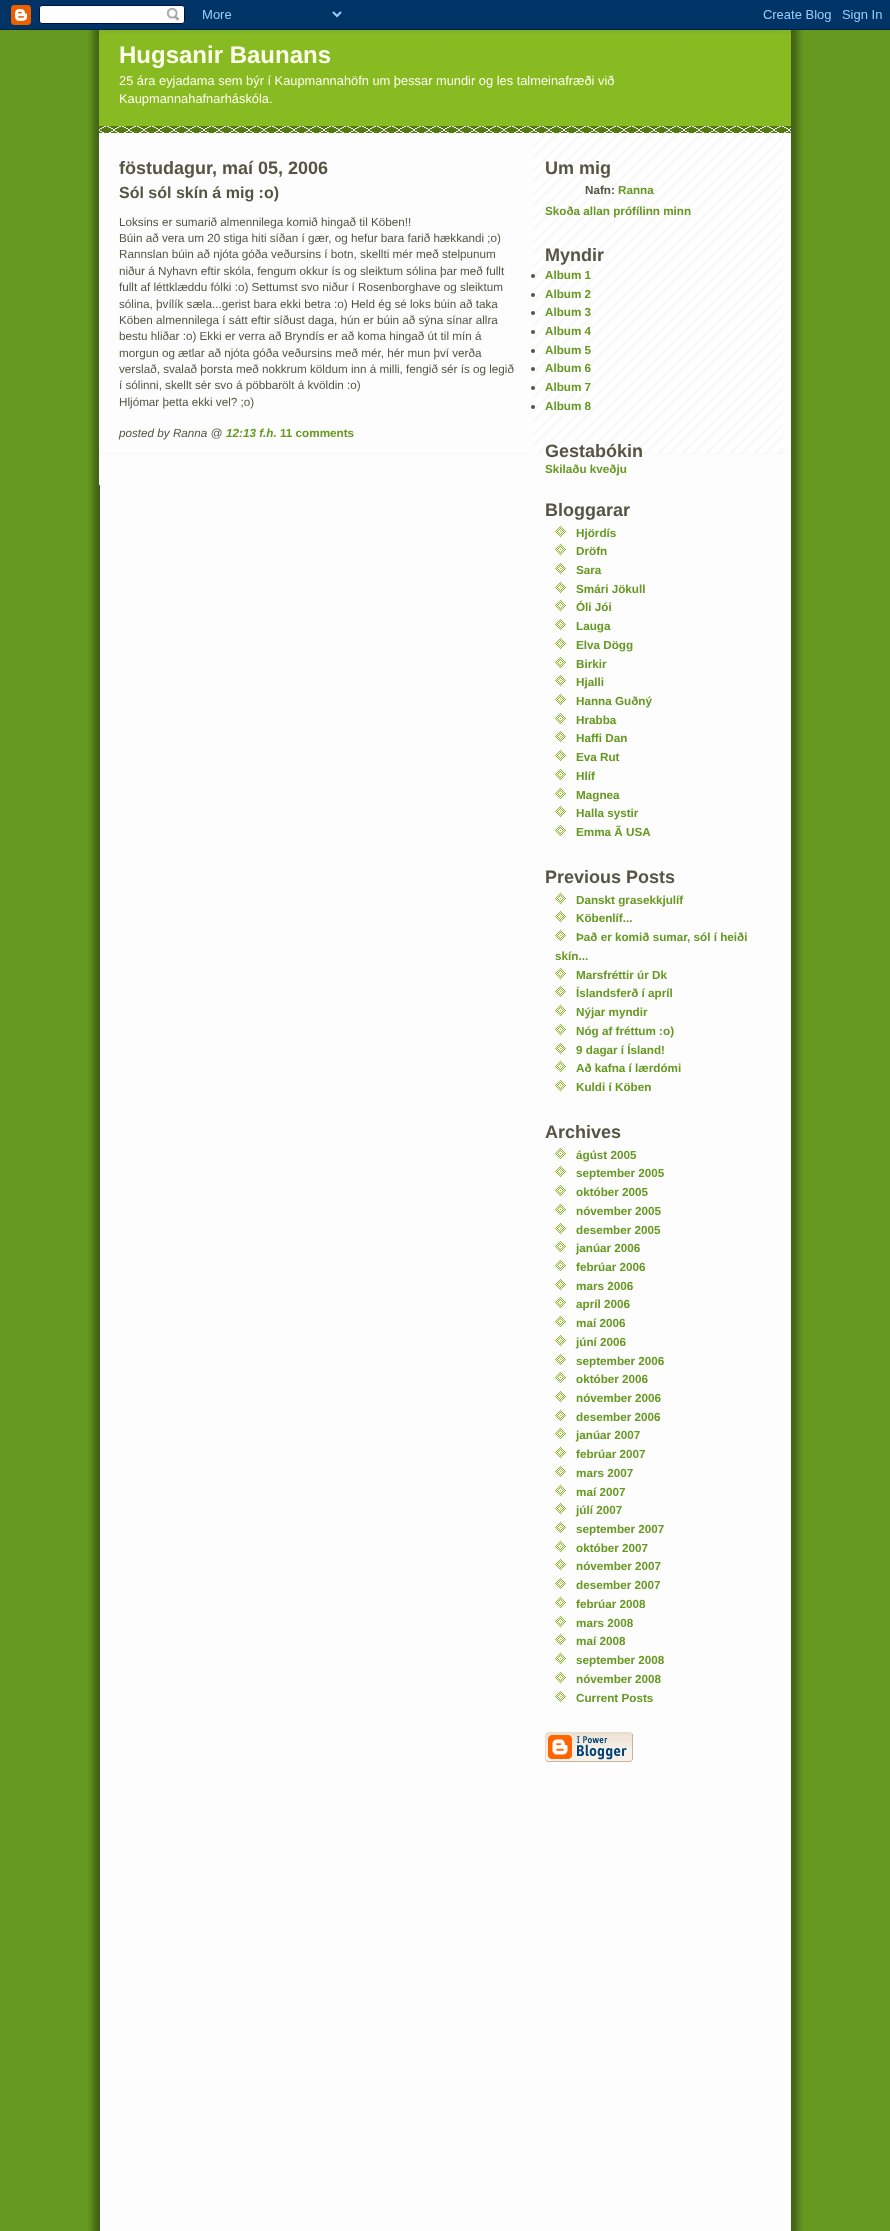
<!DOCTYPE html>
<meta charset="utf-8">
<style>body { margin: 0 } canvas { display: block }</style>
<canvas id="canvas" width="890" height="2231"></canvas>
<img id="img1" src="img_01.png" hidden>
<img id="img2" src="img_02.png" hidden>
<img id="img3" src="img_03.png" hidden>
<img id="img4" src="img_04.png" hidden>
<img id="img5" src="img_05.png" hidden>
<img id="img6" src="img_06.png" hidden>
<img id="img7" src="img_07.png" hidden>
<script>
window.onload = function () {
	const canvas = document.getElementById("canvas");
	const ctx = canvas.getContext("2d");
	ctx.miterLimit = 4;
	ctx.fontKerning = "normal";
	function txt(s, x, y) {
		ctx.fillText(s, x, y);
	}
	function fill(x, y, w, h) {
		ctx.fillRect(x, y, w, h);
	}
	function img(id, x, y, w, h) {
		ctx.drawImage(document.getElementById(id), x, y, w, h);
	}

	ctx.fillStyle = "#669922";
	fill(0, 0, 890, 2231);
	img("img1", 88, 30, 715, 2201);
	img("img2", 0, 0, 890, 30);
	ctx.fillStyle = "#FFFFFF";
	fill(99, 133, 1, 320);
	img("img3", 533, 133, 250, 320);
	ctx.fillStyle = "#88BB22";
	fill(99, 34, 692, 92);
	img("img4", 99, 126, 692, 7);
	img("img5", 99, 30, 692, 4);
	ctx.fillStyle = "#555544";
	ctx.beginPath();
	ctx.arc(533, 276, 2, 0, Math.PI * 2);
	ctx.fill();
	ctx.beginPath();
	ctx.arc(533, 295, 2, 0, Math.PI * 2);
	ctx.fill();
	ctx.beginPath();
	ctx.arc(533, 313, 2, 0, Math.PI * 2);
	ctx.fill();
	ctx.beginPath();
	ctx.arc(533, 332, 2, 0, Math.PI * 2);
	ctx.fill();
	ctx.beginPath();
	ctx.arc(533, 351, 2, 0, Math.PI * 2);
	ctx.fill();
	ctx.beginPath();
	ctx.arc(533, 369, 2, 0, Math.PI * 2);
	ctx.fill();
	ctx.beginPath();
	ctx.arc(533, 388, 2, 0, Math.PI * 2);
	ctx.fill();
	ctx.beginPath();
	ctx.arc(533, 407, 2, 0, Math.PI * 2);
	ctx.fill();
	img("img6", 555, 526, 11, 11);
	img("img6", 555, 544, 11, 11);
	img("img6", 555, 563, 11, 11);
	img("img6", 555, 582, 11, 11);
	img("img6", 555, 600, 11, 11);
	img("img6", 555, 619, 11, 11);
	img("img6", 555, 638, 11, 11);
	img("img6", 555, 657, 11, 11);
	img("img6", 555, 675, 11, 11);
	img("img6", 555, 694, 11, 11);
	img("img6", 555, 713, 11, 11);
	img("img6", 555, 731, 11, 11);
	img("img6", 555, 750, 11, 11);
	img("img6", 555, 769, 11, 11);
	img("img6", 555, 788, 11, 11);
	img("img6", 555, 806, 11, 11);
	img("img6", 555, 825, 11, 11);
	img("img6", 555, 893, 11, 11);
	img("img6", 555, 911, 11, 11);
	img("img6", 555, 930, 11, 11);
	img("img6", 555, 968, 11, 11);
	img("img6", 555, 986, 11, 11);
	img("img6", 555, 1005, 11, 11);
	img("img6", 555, 1024, 11, 11);
	img("img6", 555, 1043, 11, 11);
	img("img6", 555, 1061, 11, 11);
	img("img6", 555, 1080, 11, 11);
	img("img6", 555, 1148, 11, 11);
	img("img6", 555, 1166, 11, 11);
	img("img6", 555, 1185, 11, 11);
	img("img6", 555, 1204, 11, 11);
	img("img6", 555, 1223, 11, 11);
	img("img6", 555, 1241, 11, 11);
	img("img6", 555, 1260, 11, 11);
	img("img6", 555, 1279, 11, 11);
	img("img6", 555, 1297, 11, 11);
	img("img6", 555, 1316, 11, 11);
	img("img6", 555, 1335, 11, 11);
	img("img6", 555, 1354, 11, 11);
	img("img6", 555, 1372, 11, 11);
	img("img6", 555, 1391, 11, 11);
	img("img6", 555, 1410, 11, 11);
	img("img6", 555, 1428, 11, 11);
	img("img6", 555, 1447, 11, 11);
	img("img6", 555, 1466, 11, 11);
	img("img6", 555, 1485, 11, 11);
	img("img6", 555, 1503, 11, 11);
	img("img6", 555, 1522, 11, 11);
	img("img6", 555, 1541, 11, 11);
	img("img6", 555, 1559, 11, 11);
	img("img6", 555, 1578, 11, 11);
	img("img6", 555, 1597, 11, 11);
	img("img6", 555, 1616, 11, 11);
	img("img6", 555, 1634, 11, 11);
	img("img6", 555, 1653, 11, 11);
	img("img6", 555, 1672, 11, 11);
	img("img6", 555, 1691, 11, 11);
	img("img7", 545, 1732, 88, 30);
	ctx.fillStyle = "#FDFDFD";
	fill(99, 454, 1, 31);
	ctx.fillStyle = "#F9F9F9";
	fill(99, 453, 692, 1);
	ctx.font = "bold 24px Liberation Sans";
	ctx.fillStyle = "#FFFFEE";
	txt("Hugsanir Baunans", 119, 63);
	ctx.font = "12.85px Liberation Sans";
	txt("25 ára eyjadama sem býr í Kaupmannahöfn um þessar mundir og les talmeinafræði við", 119, 85);
	txt("Kaupmannahafnarháskóla.", 119, 103);
	ctx.font = "bold 18px Liberation Sans";
	ctx.fillStyle = "#555544";
	txt("föstudagur, maí 05, 2006", 119, 174);
	ctx.font = "bold 16px Liberation Sans";
	txt("Sól sól skín á mig :o)", 119, 198);
	ctx.font = "11.7px Liberation Sans";
	txt("Loksins er sumarið almennilega komið hingað til Köben!!", 119, 226);
	txt("Búin að vera um 20 stiga hiti síðan í gær, og hefur bara farið hækkandi ;o)", 119, 242);
	txt("Rannslan búin að njóta góða veðursins í botn, skellti mér með stelpunum", 119, 258);
	txt("niður á Nyhavn eftir skóla, fengum okkur ís og sleiktum sólina þar með fullt", 119, 275);
	txt("fullt af léttklæddu fólki :o) Settumst svo niður í Rosenborghave og sleiktum", 119, 291);
	txt("sólina, þvílík sæla...gerist bara ekki betra :o) Held ég sé loks búin að taka", 119, 308);
	txt("Köben almennilega í sátt eftir síðust daga, hún er búin að sýna sínar allra", 119, 324);
	txt("bestu hliðar :o) Ekki er verra að Bryndís er að koma hingað út til mín á", 119, 340);
	txt("morgun og ætlar að njóta góða veðursins með mér, hér mun því verða", 119, 357);
	txt("verslað, svalað þorsta með nokkrum köldum inn á milli, fengið sér ís og legið", 119, 373);
	txt("í sólinni, skellt sér svo á pöbbarölt á kvöldin :o)", 119, 389);
	txt("Hljómar þetta ekki vel? ;o)", 119, 406);
	ctx.font = "italic 11.7px Liberation Sans";
	txt("posted by Ranna @", 119, 437);
	ctx.font = "italic bold 11.7px Liberation Sans";
	ctx.fillStyle = "#669922";
	txt("12:13 f.h.", 226, 437);
	ctx.font = "bold 11.7px Liberation Sans";
	txt("11 comments", 280, 437);
	ctx.font = "bold 18px Liberation Sans";
	ctx.fillStyle = "#555544";
	txt("Um mig", 545, 174);
	ctx.font = "bold 11.7px Liberation Sans";
	txt("Nafn:", 585, 194);
	ctx.fillStyle = "#669922";
	txt("Ranna", 618, 194);
	txt("Skoða allan prófílinn minn", 545, 215);
	ctx.font = "bold 18px Liberation Sans";
	ctx.fillStyle = "#555544";
	txt("Myndir", 545, 261);
	ctx.font = "bold 11.7px Liberation Sans";
	ctx.fillStyle = "#669922";
	txt("Album 1", 545, 279);
	txt("Album 2", 545, 298);
	txt("Album 3", 545, 316);
	txt("Album 4", 545, 335);
	txt("Album 5", 545, 354);
	txt("Album 6", 545, 372);
	txt("Album 7", 545, 391);
	txt("Album 8", 545, 410);
	ctx.font = "bold 18px Liberation Sans";
	ctx.fillStyle = "#555544";
	txt("Gestabókin", 545, 457);
	ctx.font = "bold 11.7px Liberation Sans";
	ctx.fillStyle = "#669922";
	txt("Skilaðu kveðju", 545, 473);
	ctx.font = "bold 18px Liberation Sans";
	ctx.fillStyle = "#555544";
	txt("Bloggarar", 545, 516);
	ctx.font = "bold 11.7px Liberation Sans";
	ctx.fillStyle = "#669922";
	txt("Hjördís", 576, 537);
	txt("Dröfn", 576, 555);
	txt("Sara", 576, 574);
	txt("Smári Jökull", 576, 593);
	txt("Óli Jói", 576, 611);
	txt("Lauga", 576, 630);
	txt("Elva Dögg", 576, 649);
	txt("Birkir", 576, 668);
	txt("Hjalli", 576, 686);
	txt("Hanna Guðný", 576, 705);
	txt("Hrabba", 576, 724);
	txt("Haffi Dan", 576, 742);
	txt("Eva Rut", 576, 761);
	txt("Hlíf", 576, 780);
	txt("Magnea", 576, 799);
	txt("Halla systir", 576, 817);
	txt("Emma Ã USA", 576, 836);
	ctx.font = "bold 18px Liberation Sans";
	ctx.fillStyle = "#555544";
	txt("Previous Posts", 545, 883);
	ctx.font = "bold 11.7px Liberation Sans";
	ctx.fillStyle = "#669922";
	txt("Danskt grasekkjulíf", 576, 904);
	txt("Köbenlíf...", 576, 922);
	txt("Það er komið sumar, sól í heiði", 576, 941);
	txt("skín...", 555, 960);
	txt("Marsfréttir úr Dk", 576, 979);
	txt("Íslandsferð í apríl", 576, 997);
	txt("Nýjar myndir", 576, 1016);
	txt("Nóg af fréttum :o)", 576, 1035);
	txt("9 dagar í Ísland!", 576, 1054);
	txt("Að kafna í lærdómi", 576, 1072);
	txt("Kuldi í Köben", 576, 1091);
	ctx.font = "bold 18px Liberation Sans";
	ctx.fillStyle = "#555544";
	txt("Archives", 545, 1138);
	ctx.font = "bold 11.7px Liberation Sans";
	ctx.fillStyle = "#669922";
	txt("ágúst 2005", 576, 1159);
	txt("september 2005", 576, 1177);
	txt("október 2005", 576, 1196);
	txt("nóvember 2005", 576, 1215);
	txt("desember 2005", 576, 1234);
	txt("janúar 2006", 576, 1252);
	txt("febrúar 2006", 576, 1271);
	txt("mars 2006", 576, 1290);
	txt("apríl 2006", 576, 1308);
	txt("maí 2006", 576, 1327);
	txt("júní 2006", 576, 1346);
	txt("september 2006", 576, 1365);
	txt("október 2006", 576, 1383);
	txt("nóvember 2006", 576, 1402);
	txt("desember 2006", 576, 1421);
	txt("janúar 2007", 576, 1439);
	txt("febrúar 2007", 576, 1458);
	txt("mars 2007", 576, 1477);
	txt("maí 2007", 576, 1496);
	txt("júlí 2007", 576, 1514);
	txt("september 2007", 576, 1533);
	txt("október 2007", 576, 1552);
	txt("nóvember 2007", 576, 1570);
	txt("desember 2007", 576, 1589);
	txt("febrúar 2008", 576, 1608);
	txt("mars 2008", 576, 1627);
	txt("maí 2008", 576, 1645);
	txt("september 2008", 576, 1664);
	txt("nóvember 2008", 576, 1683);
	txt("Current Posts", 576, 1702);
};
</script>
